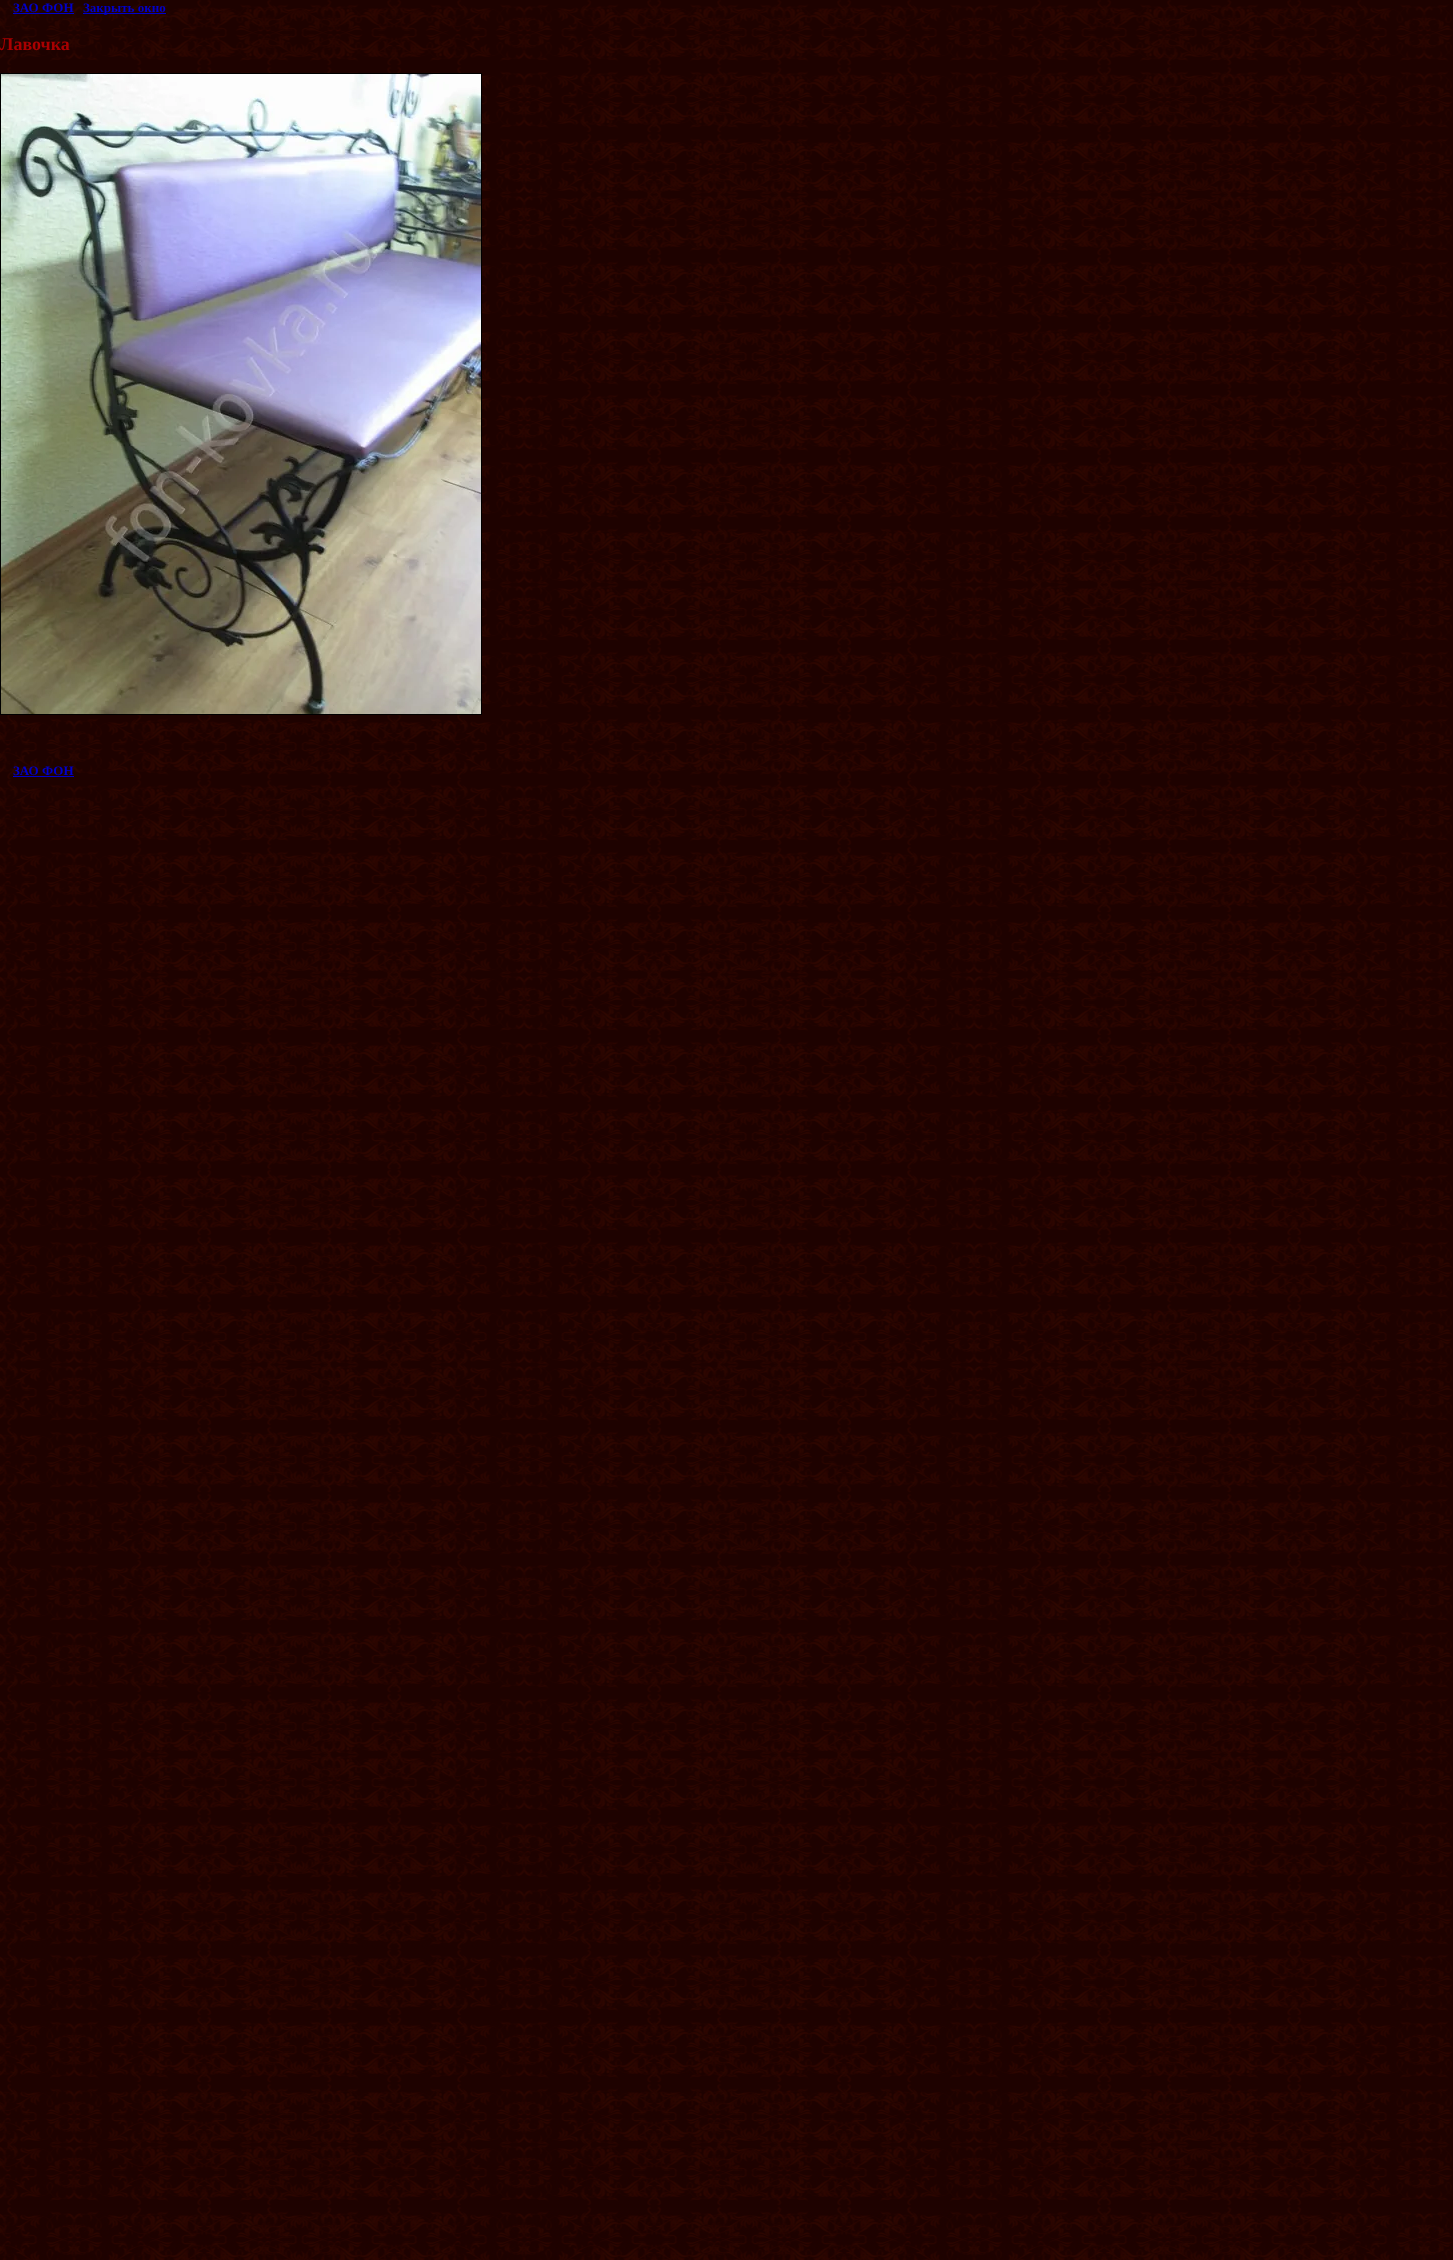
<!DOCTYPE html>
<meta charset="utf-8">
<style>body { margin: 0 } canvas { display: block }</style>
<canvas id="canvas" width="1453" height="2260"></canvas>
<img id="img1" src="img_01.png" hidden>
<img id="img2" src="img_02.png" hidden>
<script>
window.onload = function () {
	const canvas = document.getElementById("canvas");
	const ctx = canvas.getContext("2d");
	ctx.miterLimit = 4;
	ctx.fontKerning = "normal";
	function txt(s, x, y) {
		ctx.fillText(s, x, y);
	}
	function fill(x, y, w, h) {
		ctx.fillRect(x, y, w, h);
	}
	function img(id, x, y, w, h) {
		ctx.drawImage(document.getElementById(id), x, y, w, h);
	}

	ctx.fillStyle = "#FFFFFF";
	fill(0, 0, 1453, 2260);
	img("img1", 0, 0, 1453, 2260);
	ctx.fillStyle = "#0000CC";
	fill(13, 13, 61, 1);
	fill(83, 13, 83, 1);
	ctx.strokeStyle = "#000000";
	ctx.strokeRect(0.5, 73.5, 481, 641);
	img("img2", 1, 74, 480, 640);
	fill(13, 776, 61, 1);
	ctx.font = "bold 13px Liberation Serif";
	txt("ЗАО ФОН", 13, 12);
	txt("Закрыть окно", 83, 12);
	ctx.font = "bold 18px Liberation Serif";
	ctx.fillStyle = "#A90000";
	txt("Лавочка", 0, 50);
	ctx.font = "bold 13px Liberation Serif";
	ctx.fillStyle = "#0000CC";
	txt("ЗАО ФОН", 13, 775);
};
</script>
